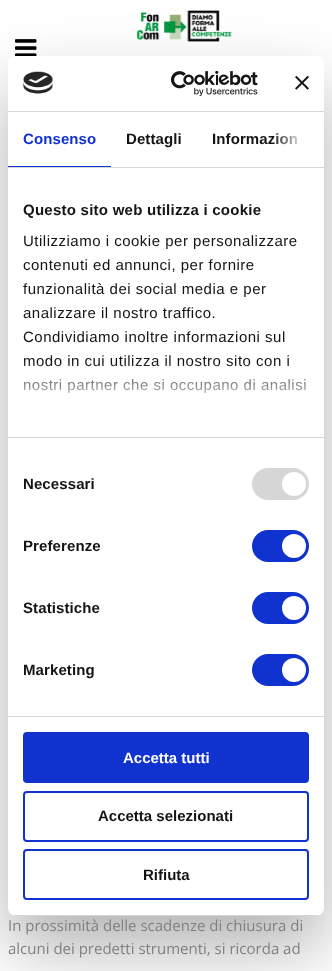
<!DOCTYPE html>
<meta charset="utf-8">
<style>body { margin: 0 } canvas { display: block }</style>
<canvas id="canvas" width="332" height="971"></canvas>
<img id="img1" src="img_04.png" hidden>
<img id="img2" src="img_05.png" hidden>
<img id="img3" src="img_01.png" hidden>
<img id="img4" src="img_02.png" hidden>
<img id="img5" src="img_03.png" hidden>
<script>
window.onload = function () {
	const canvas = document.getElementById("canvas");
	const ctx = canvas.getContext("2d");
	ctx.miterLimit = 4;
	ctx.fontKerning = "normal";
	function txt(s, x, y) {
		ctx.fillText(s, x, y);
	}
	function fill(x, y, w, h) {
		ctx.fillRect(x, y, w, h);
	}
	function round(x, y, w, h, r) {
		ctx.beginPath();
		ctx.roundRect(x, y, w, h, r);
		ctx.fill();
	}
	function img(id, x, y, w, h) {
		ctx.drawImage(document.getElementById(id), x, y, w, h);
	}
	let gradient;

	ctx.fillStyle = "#FFFFFF";
	fill(0, 0, 332, 971);
	img("img1", 136, 10, 97, 32);
	img("img2", 15, 39, 22, 18);
	ctx.fillStyle = "rgba(0, 0, 0, 0.3)";
	ctx.filter = "blur(34px)";
	ctx.beginPath();
	ctx.roundRect(8, 88, 316, 860, 8);
	ctx.fill();
	ctx.filter = "none";
	ctx.fillStyle = "#FFFFFF";
	round(8, 56, 316, 860, 8);
	ctx.fillStyle = "#D6D6D6";
	fill(8, 111, 316, 1);
	img("img3", 23, 71, 30, 23);
	img("img4", 171, 71, 87, 25);
	img("img5", 295, 76, 14, 14);
	fill(8, 167, 316, 1);
	ctx.fillStyle = "#1032CF";
	fill(8, 166, 103, 1);
	ctx.fillStyle = "#D6D6D6";
	fill(8, 437, 316, 1);
	fill(8, 716, 316, 1);
	round(252, 468, 57, 32, 16);
	ctx.fillStyle = "#FFFFFF";
	ctx.beginPath();
	ctx.arc(294, 484, 12, 0, Math.PI * 2);
	ctx.fill();
	ctx.fillStyle = "#1032CF";
	round(252, 530, 57, 32, 16);
	ctx.fillStyle = "#FFFFFF";
	ctx.beginPath();
	ctx.arc(294, 546, 12, 0, Math.PI * 2);
	ctx.fill();
	ctx.fillStyle = "#1032CF";
	round(252, 592, 57, 32, 16);
	ctx.fillStyle = "#FFFFFF";
	ctx.beginPath();
	ctx.arc(294, 608, 12, 0, Math.PI * 2);
	ctx.fill();
	ctx.fillStyle = "#1032CF";
	round(252, 654, 57, 32, 16);
	ctx.fillStyle = "#FFFFFF";
	ctx.beginPath();
	ctx.arc(294, 670, 12, 0, Math.PI * 2);
	ctx.fill();
	ctx.save();
	ctx.beginPath();
	ctx.roundRect(8, 56, 316, 860, 8);
	ctx.clip();
	ctx.fillStyle = "#D6D6D6";
	fill(8, 915, 316, 1);
	ctx.restore();
	ctx.fillStyle = "#1032CF";
	ctx.beginPath();
	ctx.roundRect(24, 733, 284, 49, 3);
	ctx.fill();
	ctx.strokeStyle = "#1032CF";
	ctx.lineWidth = 2;
	ctx.stroke();
	ctx.beginPath();
	ctx.roundRect(24, 792, 284, 49, 3);
	ctx.stroke();
	ctx.beginPath();
	ctx.roundRect(24, 850, 284, 49, 3);
	ctx.stroke();
	ctx.letterSpacing = "0.1px";
	ctx.font = "bold 15px Liberation Sans";
	txt("Consenso", 23, 144);
	ctx.fillStyle = "#141414";
	txt("Dettagli", 126, 144);
	txt("Informazion", 212, 144);
	gradient = ctx.createLinearGradient(324, 139, 272, 139);
	gradient.addColorStop(0, "#FFFFFF");
	gradient.addColorStop(0.5, "rgba(255, 255, 255, 0.8)");
	gradient.addColorStop(1, "rgba(255, 255, 255, 0)");
	ctx.fillStyle = gradient;
	fill(273, 133, 25, 12);
	ctx.letterSpacing = "0.25px";
	ctx.fillStyle = "#141414";
	txt("Questo sito web utilizza i cookie", 23, 215);
	ctx.letterSpacing = "0.5px";
	ctx.font = "15px Liberation Sans";
	txt("Utilizziamo i cookie per personalizzare", 23, 246);
	txt("contenuti ed annunci, per fornire", 23, 270);
	txt("funzionalità dei social media e per", 23, 294);
	txt("analizzare il nostro traffico.", 23, 318);
	txt("Condividiamo inoltre informazioni sul", 23, 342);
	txt("modo in cui utilizza il nostro sito con i", 23, 366);
	txt("nostri partner che si occupano di analisi", 23, 390);
	gradient = ctx.createLinearGradient(160, 437, 160, 362);
	gradient.addColorStop(0, "#FFFFFF");
	gradient.addColorStop(0.5, "rgba(255, 255, 255, 0.8)");
	gradient.addColorStop(1, "rgba(255, 255, 255, 0)");
	ctx.fillStyle = gradient;
	fill(24, 363, 282, 31);
	ctx.letterSpacing = "0.1px";
	ctx.font = "bold 15px Liberation Sans";
	ctx.fillStyle = "#141414";
	txt("Necessari", 23, 489);
	txt("Preferenze", 23, 551);
	txt("Statistiche", 23, 613);
	txt("Marketing", 23, 675);
	ctx.letterSpacing = "0px";
	ctx.fillStyle = "#FFFFFF";
	txt("Accetta tutti", 123, 763);
	ctx.fillStyle = "#141414";
	txt("Accetta selezionati", 98, 821);
	txt("Rifiuta", 143, 880);
	ctx.font = "15px Open Sans";
	ctx.fillStyle = "#818181";
	txt("In prossimità delle scadenze di chiusura di", 8, 931);
	txt("alcuni dei predetti strumenti, si ricorda ad", 8, 954);
};
</script>
